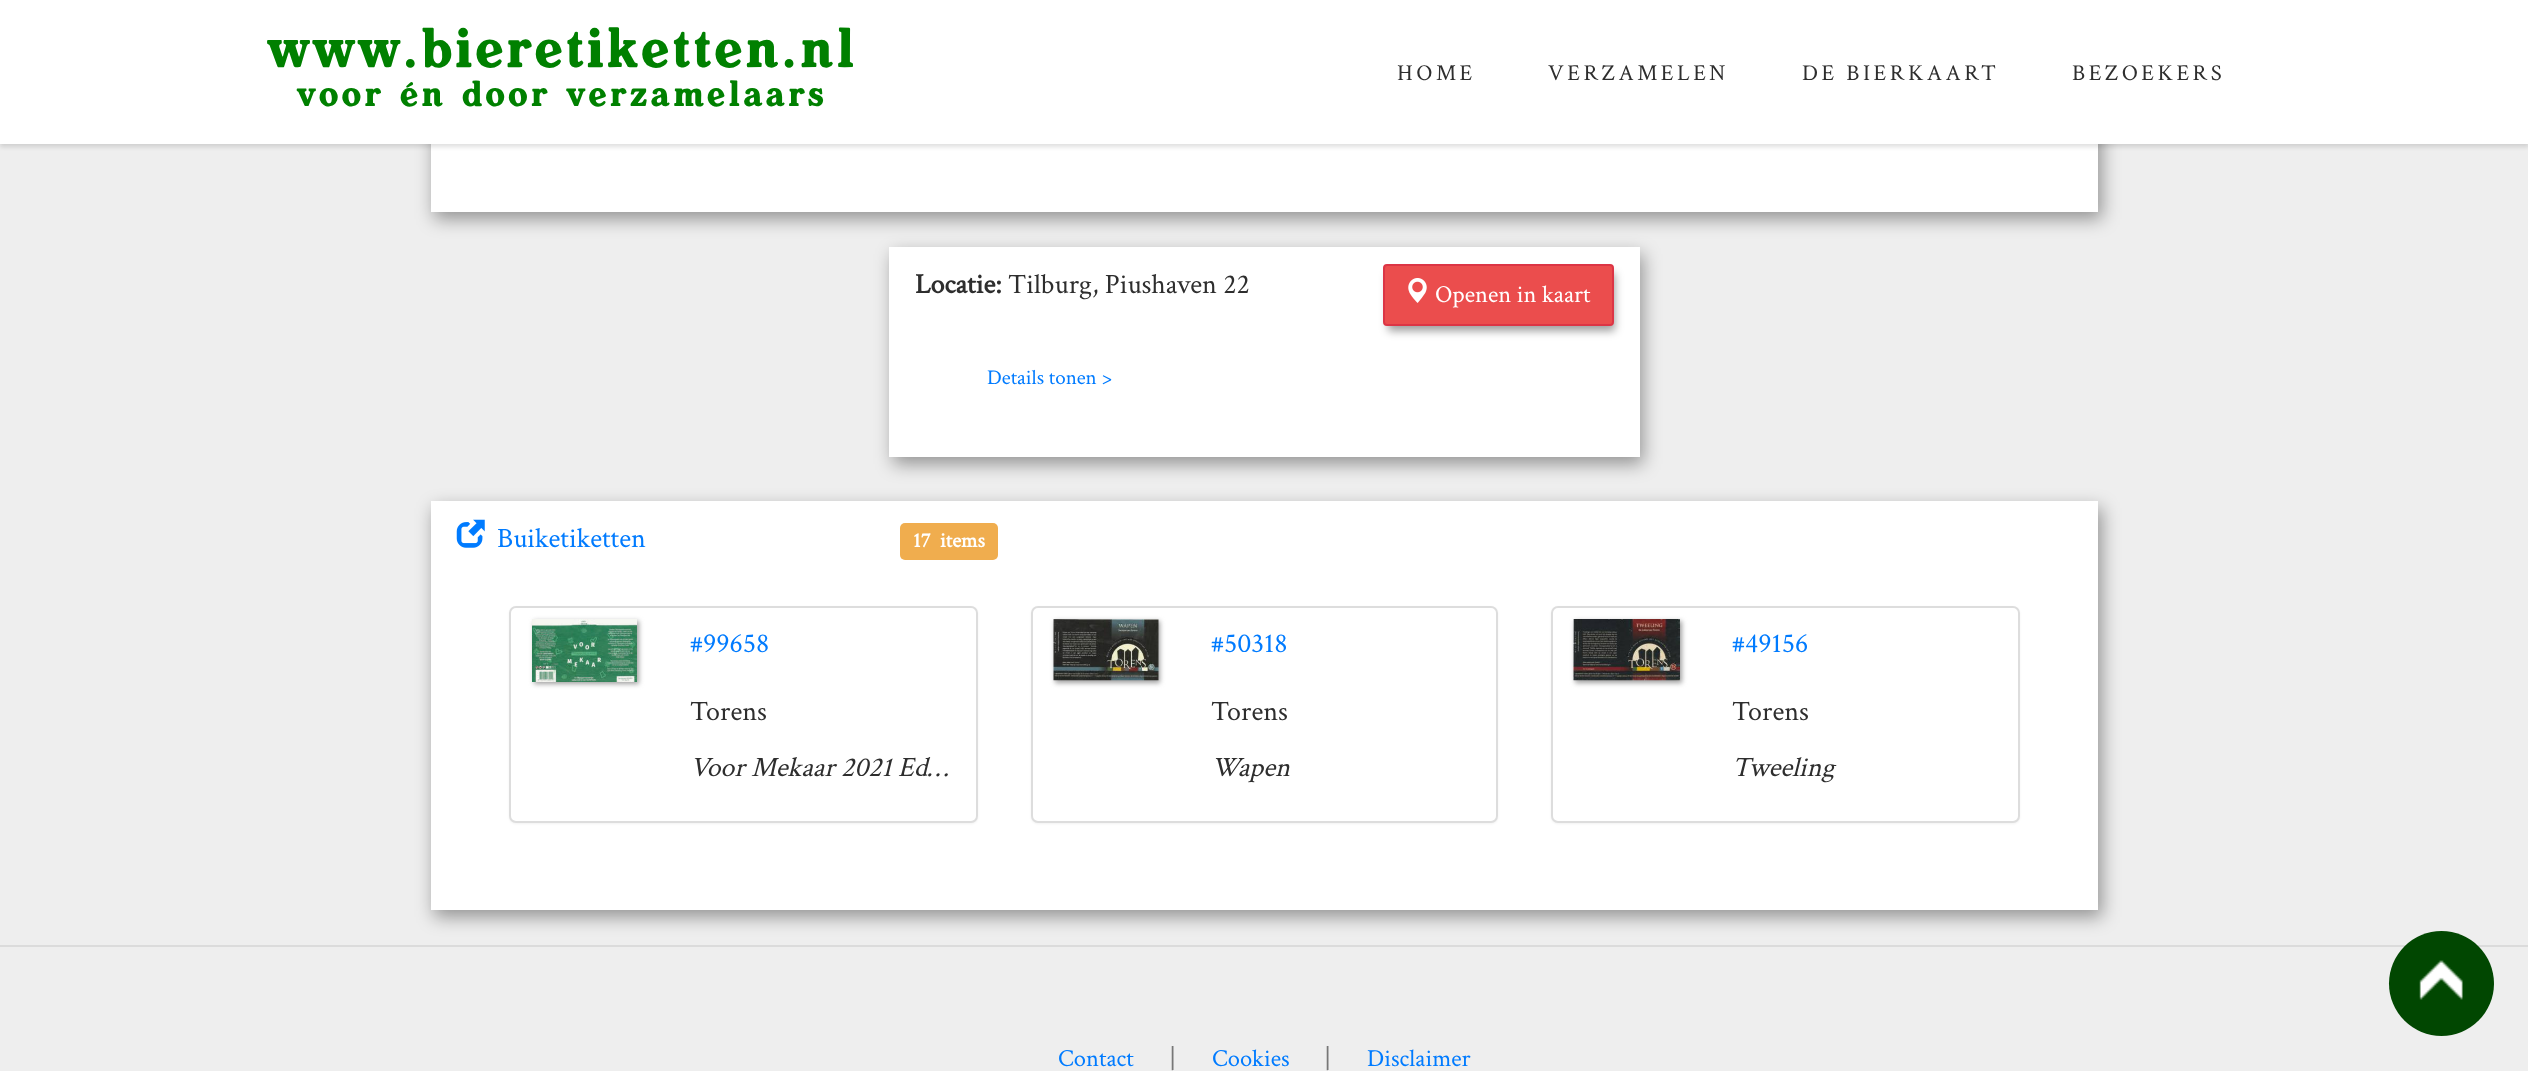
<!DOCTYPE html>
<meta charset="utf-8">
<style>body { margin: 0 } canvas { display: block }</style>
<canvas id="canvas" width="2528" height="1071"></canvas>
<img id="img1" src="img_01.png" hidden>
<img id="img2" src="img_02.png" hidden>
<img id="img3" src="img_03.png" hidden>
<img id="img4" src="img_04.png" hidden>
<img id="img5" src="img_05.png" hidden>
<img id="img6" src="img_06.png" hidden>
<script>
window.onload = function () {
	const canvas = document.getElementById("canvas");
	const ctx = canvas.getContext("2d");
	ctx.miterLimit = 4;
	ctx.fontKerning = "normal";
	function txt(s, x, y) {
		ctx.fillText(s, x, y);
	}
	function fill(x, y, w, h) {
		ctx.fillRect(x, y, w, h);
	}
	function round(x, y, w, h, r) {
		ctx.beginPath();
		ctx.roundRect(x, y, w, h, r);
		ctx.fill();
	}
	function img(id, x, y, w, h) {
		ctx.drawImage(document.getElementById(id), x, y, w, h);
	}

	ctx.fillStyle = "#EEEEEE";
	fill(0, 0, 2528, 1071);
	ctx.fillStyle = "rgba(0, 0, 0, 0.38)";
	ctx.filter = "blur(9px)";
	ctx.beginPath();
	ctx.rect(434, -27, 1668, 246);
	ctx.fill();
	ctx.filter = "none";
	ctx.fillStyle = "#FFFFFF";
	fill(431, 144, 1667, 68);
	ctx.fillStyle = "rgba(0, 0, 0, 0.12)";
	ctx.filter = "blur(2px)";
	ctx.beginPath();
	ctx.rect(0, 4, 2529, 143);
	ctx.fill();
	ctx.filter = "none";
	ctx.fillStyle = "#FFFFFF";
	fill(0, 0, 2528, 144);
	ctx.fillStyle = "rgba(0, 0, 0, 0.38)";
	ctx.filter = "blur(9px)";
	ctx.beginPath();
	ctx.rect(893, 254, 750, 210);
	ctx.fill();
	ctx.filter = "none";
	ctx.fillStyle = "#FFFFFF";
	fill(889, 247, 751, 210);
	ctx.fillStyle = "rgba(0, 0, 0, 0.38)";
	ctx.filter = "blur(4.5px)";
	ctx.beginPath();
	ctx.roundRect(1388, 273, 227, 58, 2);
	ctx.fill();
	ctx.filter = "none";
	ctx.fillStyle = "#EB4D4D";
	ctx.beginPath();
	ctx.roundRect(1384, 265, 229, 60, 3);
	ctx.fill();
	ctx.strokeStyle = "#DC3545";
	ctx.lineWidth = 2;
	ctx.stroke();
	img("img1", 1408, 278, 19, 25);
	ctx.fillStyle = "rgba(0, 0, 0, 0.38)";
	ctx.filter = "blur(9px)";
	ctx.beginPath();
	ctx.rect(434, 508, 1668, 409);
	ctx.fill();
	ctx.filter = "none";
	ctx.fillStyle = "#FFFFFF";
	fill(431, 501, 1667, 409);
	img("img2", 456, 519, 29, 29);
	ctx.fillStyle = "#F0AD4E";
	round(900, 523, 98, 37, 5);
	ctx.fillStyle = "rgba(0, 0, 0, 0.05)";
	ctx.filter = "blur(1px)";
	ctx.beginPath();
	ctx.roundRect(509, 607, 469, 217, 7);
	ctx.fill();
	ctx.filter = "none";
	ctx.fillStyle = "#FFFFFF";
	ctx.beginPath();
	ctx.roundRect(510, 607, 467, 215, 6);
	ctx.fill();
	ctx.strokeStyle = "#DDDDDD";
	ctx.stroke();
	ctx.fillStyle = "#A0A0A0";
	ctx.filter = "blur(2.5px)";
	ctx.beginPath();
	ctx.rect(534, 621, 105, 63);
	ctx.fill();
	ctx.filter = "none";
	img("img3", 532, 619, 105, 63);
	ctx.fillStyle = "rgba(0, 0, 0, 0.05)";
	ctx.filter = "blur(1px)";
	ctx.beginPath();
	ctx.roundRect(1031, 607, 467, 217, 7);
	ctx.fill();
	ctx.filter = "none";
	ctx.fillStyle = "#FFFFFF";
	ctx.beginPath();
	ctx.roundRect(1032, 607, 465, 215, 6);
	ctx.fill();
	ctx.stroke();
	ctx.fillStyle = "#A0A0A0";
	ctx.filter = "blur(2.5px)";
	ctx.beginPath();
	ctx.rect(1055, 621, 105, 62);
	ctx.fill();
	ctx.filter = "none";
	img("img4", 1053, 619, 106, 62);
	ctx.fillStyle = "rgba(0, 0, 0, 0.05)";
	ctx.filter = "blur(1px)";
	ctx.beginPath();
	ctx.roundRect(1551, 607, 469, 217, 7);
	ctx.fill();
	ctx.filter = "none";
	ctx.fillStyle = "#FFFFFF";
	ctx.beginPath();
	ctx.roundRect(1552, 607, 467, 215, 6);
	ctx.fill();
	ctx.stroke();
	ctx.fillStyle = "#A0A0A0";
	ctx.filter = "blur(2.5px)";
	ctx.beginPath();
	ctx.rect(1575, 621, 107, 62);
	ctx.fill();
	ctx.filter = "none";
	img("img5", 1573, 619, 107, 62);
	ctx.fillStyle = "#DBDBDB";
	fill(0, 945, 2528, 2);
	ctx.fillStyle = "#014701";
	ctx.beginPath();
	ctx.arc(2441.5, 983.5, 52.5, 0, Math.PI * 2);
	ctx.fill();
	img("img6", 2419, 960, 44, 40);
	ctx.letterSpacing = "3.5px";
	ctx.font = "56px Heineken";
	ctx.fillStyle = "#008000";
	txt("www.bieretiketten.nl", 267, 67);
	ctx.font = "36.4px Heineken";
	txt("voor én door verzamelaars", 297, 106);
	ctx.font = "22.75px Crimson Text";
	ctx.fillStyle = "#2E2E2E";
	txt("HOME", 1397, 80);
	txt("VERZAMELEN", 1548, 80);
	txt("DE BIERKAART", 1802, 80);
	txt("BEZOEKERS", 2072, 80);
	ctx.letterSpacing = "0px";
	ctx.font = "bold 28px Crimson Text";
	txt("Locatie:", 915, 293);
	ctx.font = "28px Crimson Text";
	txt("Tilburg, Piushaven 22", 1008, 293);
	ctx.font = "24.5px Crimson Text";
	ctx.fillStyle = "#FFFFFF";
	txt("Openen in kaart", 1435, 302);
	ctx.font = "21px Crimson Text";
	ctx.fillStyle = "#007BFF";
	txt("Details tonen >", 987, 384);
	ctx.font = "28px Crimson Text";
	txt("Buiketiketten", 497, 547);
	ctx.font = "bold 21px Crimson Text";
	ctx.fillStyle = "#FFFFFF";
	txt("17  items", 913, 547);
	ctx.font = "28px Crimson Text";
	ctx.fillStyle = "#007BFF";
	txt("#99658", 690, 652);
	ctx.fillStyle = "#2E2E2E";
	txt("Torens", 690, 720);
	ctx.font = "italic 28px Crimson Text";
	txt("Voor Mekaar 2021 Ed…", 690, 776);
	ctx.font = "28px Crimson Text";
	ctx.fillStyle = "#007BFF";
	txt("#50318", 1211, 652);
	ctx.fillStyle = "#2E2E2E";
	txt("Torens", 1211, 720);
	ctx.font = "italic 28px Crimson Text";
	txt("Wapen", 1211, 776);
	ctx.font = "28px Crimson Text";
	ctx.fillStyle = "#007BFF";
	txt("#49156", 1732, 652);
	ctx.fillStyle = "#2E2E2E";
	txt("Torens", 1732, 720);
	ctx.font = "italic 28px Crimson Text";
	txt("Tweeling", 1732, 776);
	ctx.font = "24.5px Crimson Text";
	ctx.fillStyle = "#007BFF";
	txt("Contact", 1058, 1066);
	ctx.font = "28px Crimson Text";
	ctx.fillStyle = "#777777";
	txt("|", 1169, 1067);
	ctx.font = "24.5px Crimson Text";
	ctx.fillStyle = "#007BFF";
	txt("Cookies", 1212, 1066);
	ctx.font = "28px Crimson Text";
	ctx.fillStyle = "#777777";
	txt("|", 1324, 1067);
	ctx.font = "24.5px Crimson Text";
	ctx.fillStyle = "#007BFF";
	txt("Disclaimer", 1367, 1066);
};
</script>
